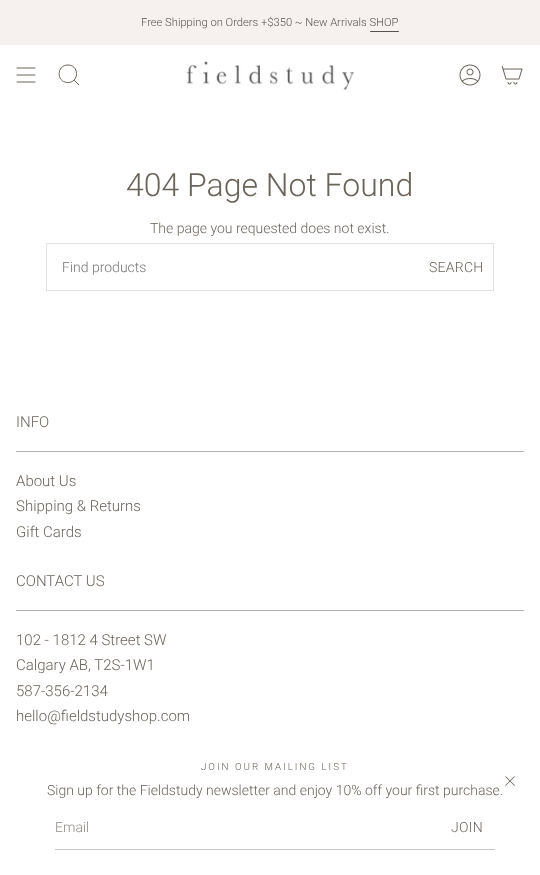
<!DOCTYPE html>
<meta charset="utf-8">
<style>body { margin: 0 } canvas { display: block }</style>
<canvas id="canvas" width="540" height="875"></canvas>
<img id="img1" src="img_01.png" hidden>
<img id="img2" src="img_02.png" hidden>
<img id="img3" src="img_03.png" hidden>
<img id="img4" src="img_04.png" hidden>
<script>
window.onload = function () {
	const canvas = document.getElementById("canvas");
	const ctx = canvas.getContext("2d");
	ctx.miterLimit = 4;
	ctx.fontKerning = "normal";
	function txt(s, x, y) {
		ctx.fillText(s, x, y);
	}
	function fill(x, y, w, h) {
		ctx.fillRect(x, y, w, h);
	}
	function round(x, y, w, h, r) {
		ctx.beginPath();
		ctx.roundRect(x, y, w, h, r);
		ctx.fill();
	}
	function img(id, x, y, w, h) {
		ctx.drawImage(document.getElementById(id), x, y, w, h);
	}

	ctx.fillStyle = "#FFFFFF";
	fill(0, 0, 540, 875);
	ctx.fillStyle = "#F6F1EE";
	fill(0, 0, 540, 45);
	ctx.fillStyle = "#545454";
	round(370, 31, 29, 1, 0.5);
	ctx.beginPath();
	ctx.moveTo(17, 68);
	ctx.lineTo(35, 68);
	ctx.moveTo(17, 75);
	ctx.lineTo(35, 75);
	ctx.moveTo(17, 82);
	ctx.lineTo(35, 82);
	ctx.strokeStyle = "#6B645B";
	ctx.lineCap = "round";
	ctx.lineJoin = "round";
	ctx.stroke();
	ctx.beginPath();
	ctx.moveTo(68, 65);
	ctx.bezierCurveTo(79.5, 65, 79.5, 83, 67.5, 82.5);
	ctx.bezierCurveTo(56, 82, 56.5, 65, 68, 65);
	ctx.closePath();
	ctx.moveTo(74, 80);
	ctx.lineTo(79, 85);
	ctx.lineCap = "butt";
	ctx.lineJoin = "miter";
	ctx.stroke();
	img("img1", 186, 61, 169, 29);
	img("img2", 459, 64, 22, 22);
	img("img3", 501, 66, 22, 19);
	ctx.strokeStyle = "#E2E2E2";
	ctx.strokeRect(46.5, 243.5, 447, 47);
	ctx.fillStyle = "#B5B2AD";
	fill(16, 451, 508, 1);
	fill(16, 610, 508, 1);
	ctx.fillStyle = "#CBC9C6";
	fill(55, 849, 440, 1);
	img("img4", 505, 776, 10, 10);
	ctx.font = "300 11.2px Roboto";
	ctx.fillStyle = "#545454";
	txt("Free Shipping on Orders +$350 ~ New Arrivals SHOP", 141, 26);
	ctx.font = "300 32px Roboto";
	ctx.fillStyle = "#6B645B";
	txt("404 Page Not Found", 126, 196);
	ctx.font = "300 14px Roboto";
	txt("The page you requested does not exist.", 150, 233);
	ctx.fillStyle = "#757575";
	txt("Find products", 62, 272);
	ctx.letterSpacing = "0.25px";
	ctx.fillStyle = "#6B645B";
	txt("SEARCH", 429, 272);
	ctx.letterSpacing = "0px";
	ctx.font = "300 15px Roboto";
	txt("INFO", 16, 427);
	txt("About Us", 16, 486);
	txt("Shipping & Returns", 16, 511);
	txt("Gift Cards", 16, 537);
	txt("CONTACT US", 16, 586);
	txt("102 - 1812 4 Street SW", 16, 645);
	txt("Calgary AB, T2S-1W1", 16, 670);
	txt("587-356-2134", 16, 696);
	txt("hello@fieldstudyshop.com", 16, 721);
	ctx.letterSpacing = "2px";
	ctx.font = "300 9.75px Roboto";
	txt("JOIN OUR MAILING LIST", 201, 770);
	ctx.letterSpacing = "0px";
	ctx.font = "300 14px Roboto";
	txt("Sign up for the Fieldstudy newsletter and enjoy 10% off your first purchase.", 47, 795);
	ctx.fillStyle = "#908B84";
	txt("Email", 55, 832);
	ctx.letterSpacing = "0.25px";
	ctx.fillStyle = "#6B645B";
	txt("JOIN", 451, 832);
};
</script>
